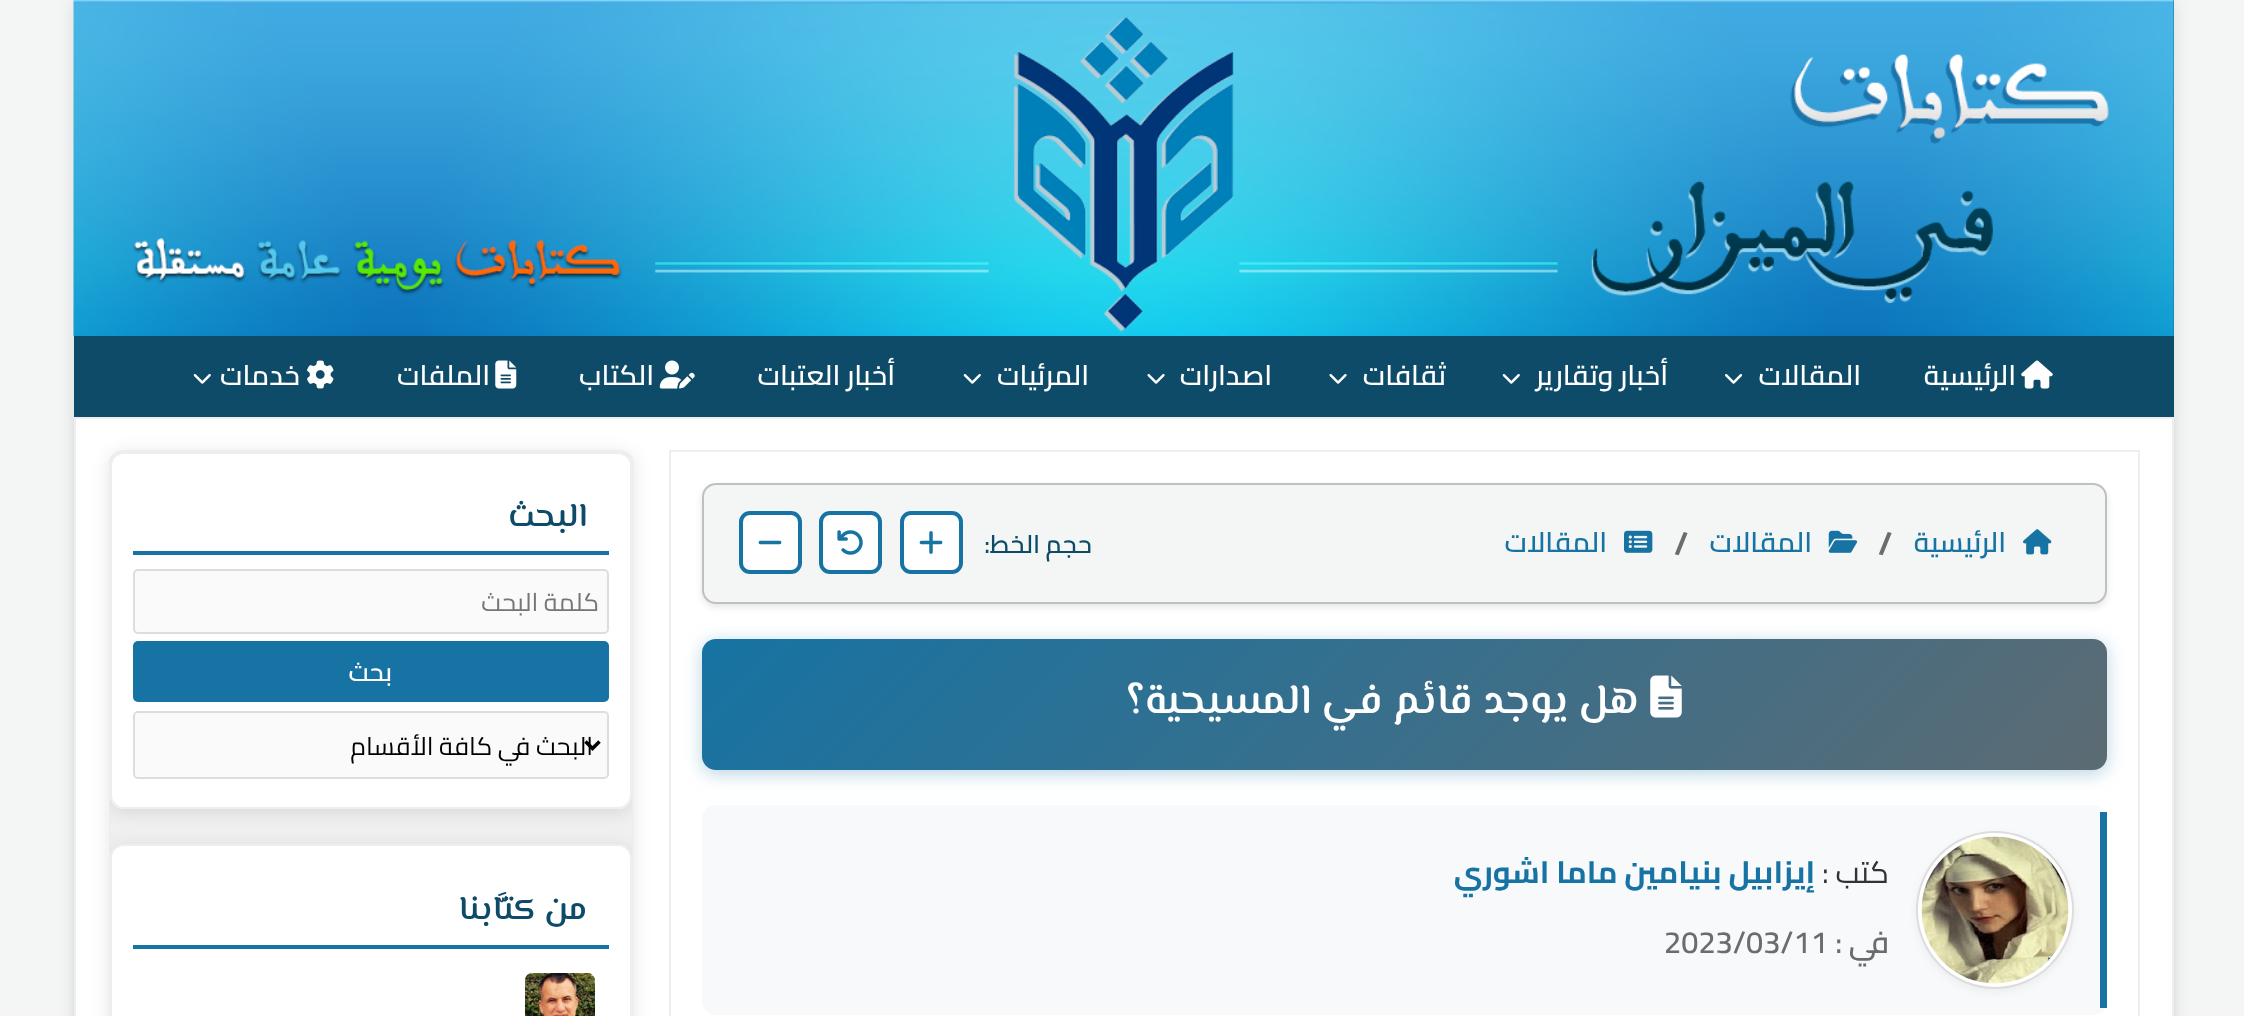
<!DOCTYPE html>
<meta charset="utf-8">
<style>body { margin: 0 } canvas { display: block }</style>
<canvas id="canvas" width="2244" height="1016"></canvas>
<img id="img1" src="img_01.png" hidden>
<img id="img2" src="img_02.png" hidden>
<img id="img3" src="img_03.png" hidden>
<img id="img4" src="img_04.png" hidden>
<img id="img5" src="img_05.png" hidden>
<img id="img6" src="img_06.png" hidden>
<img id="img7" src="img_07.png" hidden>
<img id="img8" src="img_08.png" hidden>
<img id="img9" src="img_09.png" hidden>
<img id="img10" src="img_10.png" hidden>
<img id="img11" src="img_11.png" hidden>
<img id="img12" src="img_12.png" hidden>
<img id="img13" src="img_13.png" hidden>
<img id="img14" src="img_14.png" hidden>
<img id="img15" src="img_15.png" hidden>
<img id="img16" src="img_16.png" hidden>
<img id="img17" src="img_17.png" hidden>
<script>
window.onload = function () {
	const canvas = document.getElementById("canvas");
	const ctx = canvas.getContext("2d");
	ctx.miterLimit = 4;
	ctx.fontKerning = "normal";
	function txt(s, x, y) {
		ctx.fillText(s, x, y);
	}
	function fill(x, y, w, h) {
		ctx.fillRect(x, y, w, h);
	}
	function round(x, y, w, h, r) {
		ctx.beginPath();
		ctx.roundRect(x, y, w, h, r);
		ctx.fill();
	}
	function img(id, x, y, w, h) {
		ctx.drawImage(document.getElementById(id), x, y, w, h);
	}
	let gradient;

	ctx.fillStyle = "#F4F6F5";
	fill(0, 0, 2244, 1016);
	ctx.fillStyle = "rgba(0, 0, 0, 0.1)";
	ctx.filter = "blur(9px)";
	ctx.beginPath();
	ctx.rect(74, 0, 2100, 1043);
	ctx.fill();
	ctx.filter = "none";
	ctx.fillStyle = "#1673A3";
	fill(2173, 0, 1, 336);
	img("img1", 73, 0, 2101, 336);
	ctx.fillStyle = "rgba(0, 0, 0, 0.05)";
	ctx.filter = "blur(3.5px)";
	ctx.beginPath();
	ctx.rect(74, 418, 2100, 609);
	ctx.fill();
	ctx.filter = "none";
	ctx.fillStyle = "#0D4B68";
	fill(74, 336, 2100, 81);
	img("img2", 2021, 360, 32, 29);
	img("img3", 1725, 374, 18, 10);
	img("img4", 1502, 374, 18, 10);
	img("img5", 1329, 374, 18, 10);
	img("img5", 1147, 374, 18, 10);
	img("img4", 963, 374, 18, 10);
	img("img6", 659, 360, 36, 29);
	img("img7", 495, 360, 22, 29);
	img("img8", 307, 360, 27, 29);
	img("img4", 193, 374, 18, 10);
	ctx.fillStyle = "#FFFFFF";
	ctx.beginPath();
	ctx.rect(75, 418, 2098, 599);
	ctx.fill();
	ctx.strokeStyle = "#EEEEEE";
	ctx.lineWidth = 2;
	ctx.stroke();
	ctx.strokeRect(670, 451, 1469, 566);
	ctx.fillStyle = "rgba(0, 0, 0, 0.1)";
	ctx.filter = "blur(3.5px)";
	ctx.beginPath();
	ctx.roundRect(702, 487, 1405, 120, 14);
	ctx.fill();
	ctx.filter = "none";
	ctx.fillStyle = "#F4F6F5";
	ctx.beginPath();
	ctx.roundRect(703, 484, 1403, 119, 13);
	ctx.fill();
	ctx.strokeStyle = "#C0C0C0";
	ctx.stroke();
	img("img9", 2023, 529, 29, 26);
	img("img10", 1828, 530, 30, 23);
	img("img11", 1624, 530, 29, 23);
	ctx.fillStyle = "#FFFFFF";
	ctx.beginPath();
	ctx.roundRect(902, 513, 59, 59, 9);
	ctx.fill();
	ctx.strokeStyle = "#1673A3";
	ctx.lineWidth = 4;
	ctx.stroke();
	img("img12", 919, 531, 24, 23);
	ctx.beginPath();
	ctx.roundRect(821, 513, 59, 59, 9);
	ctx.fill();
	ctx.stroke();
	img("img13", 837, 530, 26, 25);
	ctx.beginPath();
	ctx.roundRect(741, 513, 59, 59, 9);
	ctx.fill();
	ctx.stroke();
	img("img14", 758, 540, 24, 5);
	ctx.fillStyle = "rgba(22, 115, 163, 0.3)";
	ctx.filter = "blur(9px)";
	ctx.beginPath();
	ctx.roundRect(702, 642, 1405, 132, 14);
	ctx.fill();
	ctx.filter = "none";
	gradient = ctx.createLinearGradient(1020, 320, 1789, 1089);
	gradient.addColorStop(0, "#1673A3");
	gradient.addColorStop(1, "#5C6B73");
	ctx.fillStyle = gradient;
	round(702, 639, 1405, 131, 14);
	img("img15", 1650, 675, 32, 43);
	ctx.fillStyle = "#F8F9FA";
	round(702, 805, 1405, 210, 14);
	ctx.fillStyle = "#1673A3";
	fill(2100, 812, 7, 196);
	ctx.fillStyle = "rgba(0, 0, 0, 0.05)";
	ctx.filter = "blur(4.5px)";
	ctx.beginPath();
	ctx.roundRect(1916, 835, 158, 157, 78.5);
	ctx.fill();
	ctx.filter = "none";
	ctx.fillStyle = "#FFFFFF";
	ctx.beginPath();
	ctx.arc(1995, 910, 78, 0, Math.PI * 2);
	ctx.fill();
	ctx.strokeStyle = "#DDDDDD";
	ctx.lineWidth = 2;
	ctx.stroke();
	img("img16", 1921, 836, 148, 148);
	ctx.fillStyle = "rgba(0, 0, 0, 0.1)";
	ctx.filter = "blur(9px)";
	ctx.beginPath();
	ctx.roundRect(109, 453, 525, 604, 14);
	ctx.fill();
	ctx.filter = "none";
	ctx.fillStyle = "#F0F0F0";
	ctx.beginPath();
	ctx.roundRect(110, 451, 523, 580, 13);
	ctx.fill();
	ctx.strokeStyle = "#EEEEEE";
	ctx.stroke();
	ctx.save();
	ctx.beginPath();
	ctx.roundRect(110, 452, 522, 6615, 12);
	ctx.clip();
	ctx.fillStyle = "rgba(0, 0, 0, 0.1)";
	ctx.filter = "blur(9px)";
	ctx.beginPath();
	ctx.roundRect(110, 455, 522, 357, 14);
	ctx.fill();
	ctx.filter = "none";
	ctx.restore();
	ctx.save();
	ctx.beginPath();
	ctx.roundRect(110, 452, 522, 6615, 12);
	ctx.clip();
	ctx.fillStyle = "#FFFFFF";
	round(110, 452, 522, 357, 14);
	ctx.restore();
	ctx.beginPath();
	ctx.roundRect(111, 453, 520, 355, 13);
	ctx.stroke();
	ctx.fillStyle = "#1673A3";
	fill(133, 551, 476, 4);
	ctx.fillStyle = "#FAFAFA";
	ctx.beginPath();
	ctx.roundRect(134, 570, 474, 63, 4);
	ctx.fill();
	ctx.strokeStyle = "#DDDDDD";
	ctx.stroke();
	ctx.fillStyle = "#1673A3";
	round(133, 641, 476, 61, 5);
	ctx.fillStyle = "#FAFAFA";
	ctx.beginPath();
	ctx.roundRect(134, 712, 474, 66, 4);
	ctx.fill();
	ctx.stroke();
	ctx.beginPath();
	ctx.moveTo(585.5, 741.5);
	ctx.lineTo(592.5, 748.5);
	ctx.lineTo(599.5, 741.5);
	ctx.strokeStyle = "#000000";
	ctx.lineWidth = 3.5;
	ctx.stroke();
	ctx.save();
	ctx.beginPath();
	ctx.roundRect(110, 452, 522, 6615, 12);
	ctx.clip();
	ctx.fillStyle = "rgba(0, 0, 0, 0.1)";
	ctx.filter = "blur(9px)";
	ctx.beginPath();
	ctx.roundRect(110, 847, 522, 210, 14);
	ctx.fill();
	ctx.filter = "none";
	ctx.restore();
	ctx.fillStyle = "#FFFFFF";
	ctx.beginPath();
	ctx.roundRect(111, 845, 520, 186, 13);
	ctx.fill();
	ctx.strokeStyle = "#EEEEEE";
	ctx.lineWidth = 2;
	ctx.stroke();
	ctx.fillStyle = "#1673A3";
	fill(133, 945, 476, 4);
	img("img17", 525, 973, 70, 43);
	ctx.direction = "rtl";
	ctx.font = "600 28px Cairo";
	ctx.fillStyle = "#FFFFFF";
	txt("الرئيسية", 2016, 385);
	txt("المقالات", 1861, 385);
	txt("أخبار وتقارير", 1668, 385);
	txt("ثقافات", 1446, 385);
	txt("اصدارات", 1272, 385);
	txt("المرئيات", 1089, 385);
	txt("أخبار العتبات", 895, 385);
	txt("الكتاب", 654, 385);
	txt("الملفات", 490, 385);
	txt("خدمات", 300, 385);
	ctx.fillStyle = "#1673A3";
	txt("الرئيسية", 2006, 552);
	ctx.direction = "ltr";
	ctx.font = "bold 30.75px Cairo";
	ctx.fillStyle = "#6C6C6C";
	txt("/", 1878, 554);
	ctx.direction = "rtl";
	ctx.font = "600 28px Cairo";
	ctx.fillStyle = "#1673A3";
	txt("المقالات", 1812, 552);
	ctx.direction = "ltr";
	ctx.font = "bold 30.75px Cairo";
	ctx.fillStyle = "#6C6C6C";
	txt("/", 1674, 554);
	ctx.direction = "rtl";
	ctx.font = "600 28px Cairo";
	ctx.fillStyle = "#1673A3";
	txt("المقالات", 1607, 552);
	ctx.font = "600 25.25px Cairo";
	ctx.fillStyle = "#0D4B68";
	txt("حجم الخط:", 1092, 553);
	ctx.font = "600 42px El Messiri";
	ctx.fillStyle = "#FFFFFF";
	txt("هل يوجد قائم في المسيحية؟", 1639, 713);
	ctx.font = "30.75px Cairo";
	ctx.fillStyle = "#333333";
	txt("كتب :", 1889, 883);
	ctx.font = "bold 30.75px Cairo";
	ctx.fillStyle = "#1673A3";
	txt("إيزابيل بنيامين ماما اشوري", 1815, 883);
	ctx.font = "600 30.75px Cairo";
	ctx.fillStyle = "#6C6C6C";
	txt("في :", 1889, 953);
	ctx.direction = "ltr";
	txt("2023/03/11", 1664, 953);
	ctx.direction = "rtl";
	ctx.font = "600 33.5px El Messiri";
	ctx.fillStyle = "#0D4B68";
	txt("البحث", 587, 526);
	ctx.font = "25.25px Cairo";
	ctx.fillStyle = "#757575";
	txt("كلمة البحث", 599, 611);
	ctx.font = "600 25.25px Cairo";
	ctx.fillStyle = "#FFFFFF";
	txt("بحث", 392, 681);
	ctx.font = "25.25px Cairo";
	ctx.fillStyle = "#000000";
	txt("البحث في كافة الأقسام", 593, 755);
	ctx.font = "600 33.5px El Messiri";
	ctx.fillStyle = "#0D4B68";
	txt("من كتَّابنا", 587, 919);
};
</script>
